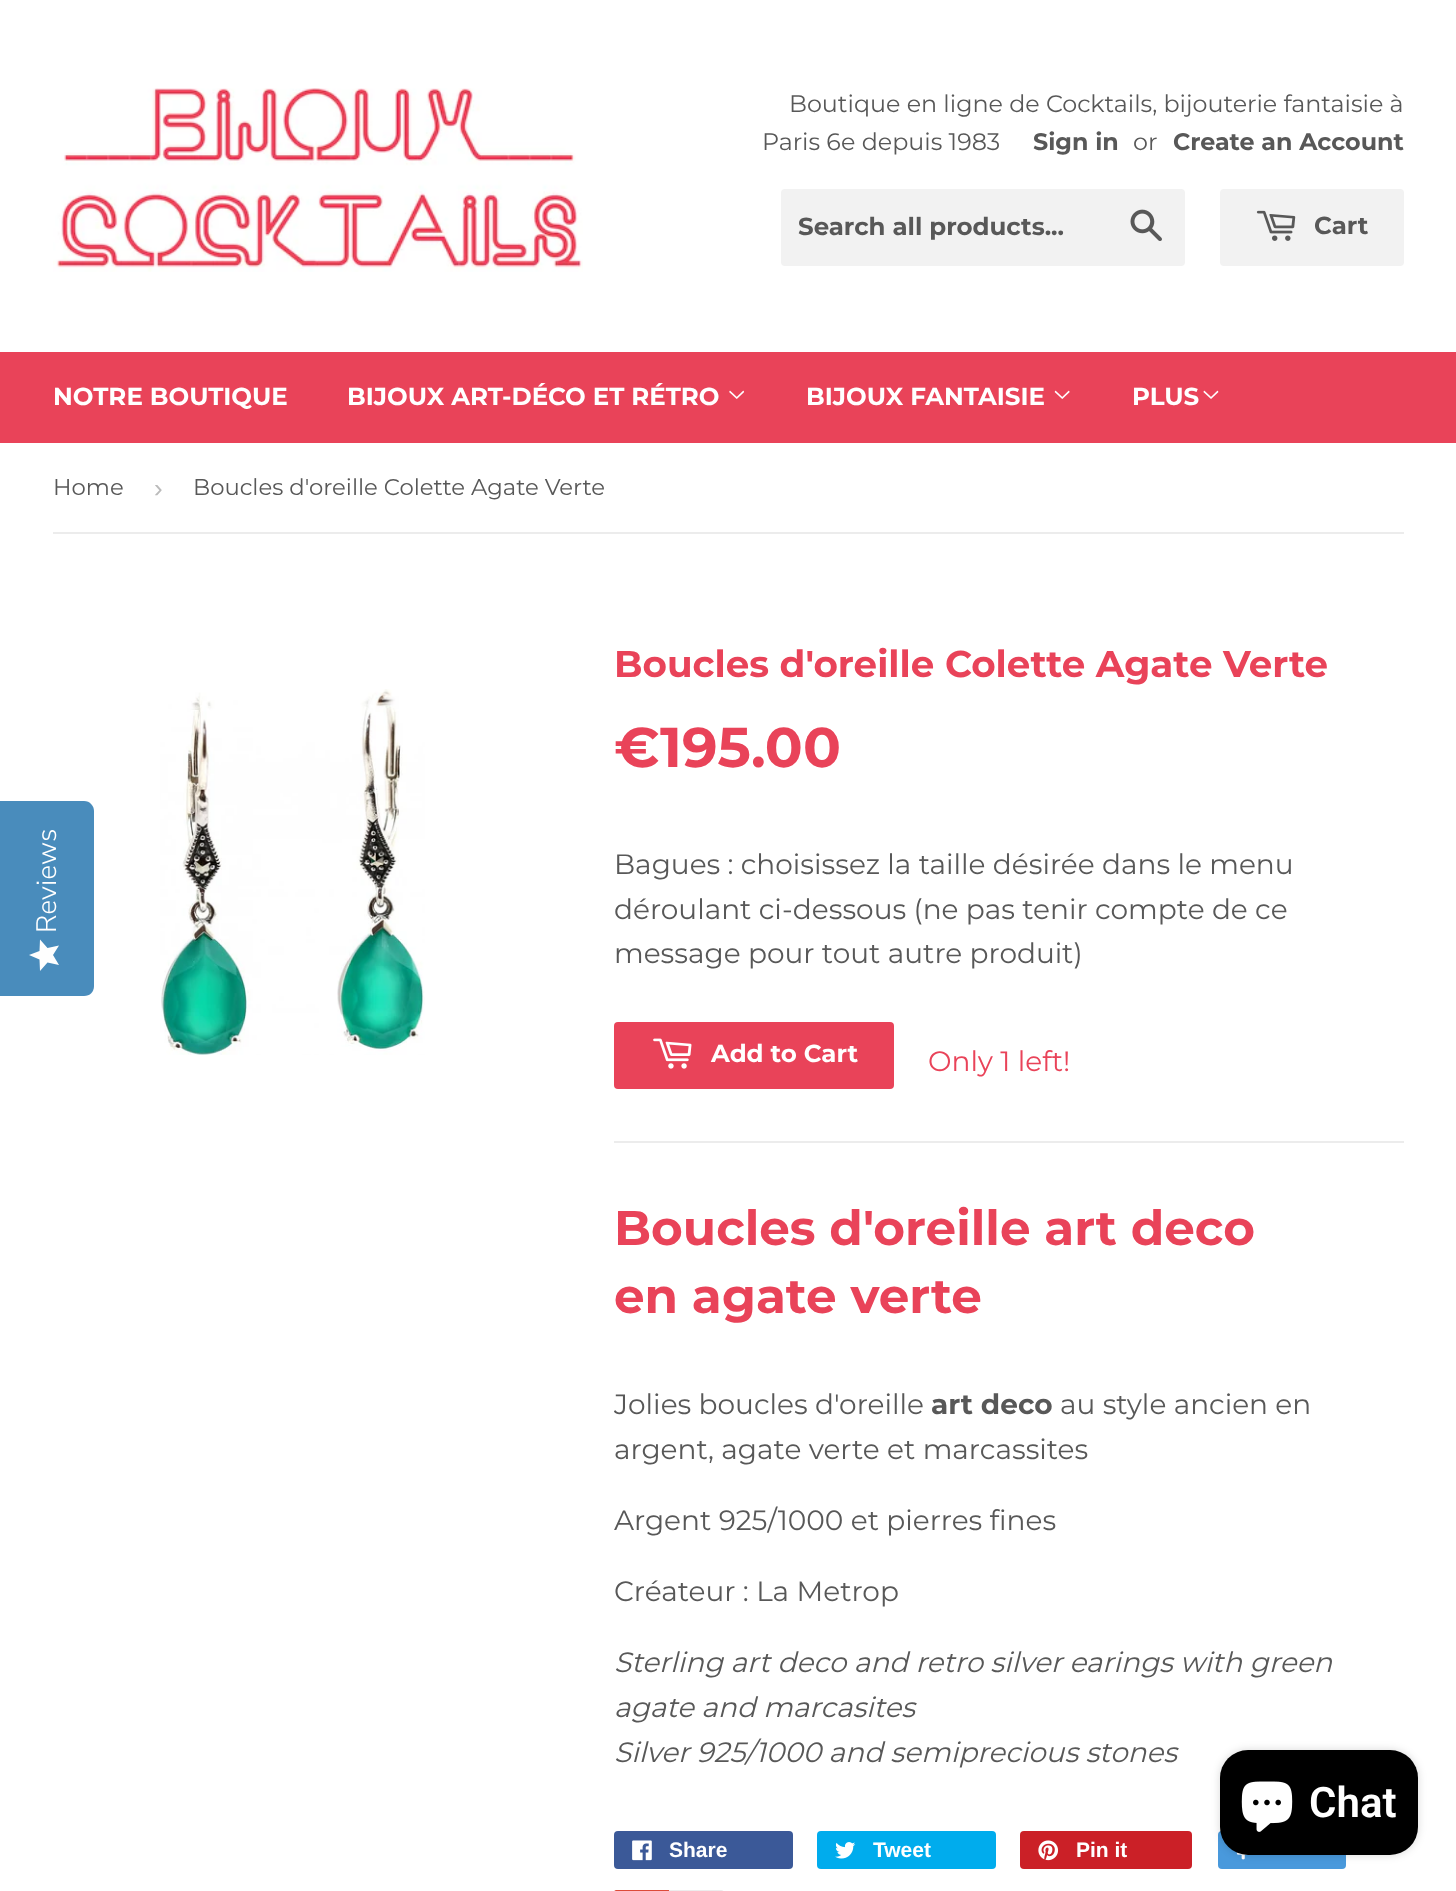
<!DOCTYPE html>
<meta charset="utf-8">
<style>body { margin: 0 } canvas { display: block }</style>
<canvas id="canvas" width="1456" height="1891"></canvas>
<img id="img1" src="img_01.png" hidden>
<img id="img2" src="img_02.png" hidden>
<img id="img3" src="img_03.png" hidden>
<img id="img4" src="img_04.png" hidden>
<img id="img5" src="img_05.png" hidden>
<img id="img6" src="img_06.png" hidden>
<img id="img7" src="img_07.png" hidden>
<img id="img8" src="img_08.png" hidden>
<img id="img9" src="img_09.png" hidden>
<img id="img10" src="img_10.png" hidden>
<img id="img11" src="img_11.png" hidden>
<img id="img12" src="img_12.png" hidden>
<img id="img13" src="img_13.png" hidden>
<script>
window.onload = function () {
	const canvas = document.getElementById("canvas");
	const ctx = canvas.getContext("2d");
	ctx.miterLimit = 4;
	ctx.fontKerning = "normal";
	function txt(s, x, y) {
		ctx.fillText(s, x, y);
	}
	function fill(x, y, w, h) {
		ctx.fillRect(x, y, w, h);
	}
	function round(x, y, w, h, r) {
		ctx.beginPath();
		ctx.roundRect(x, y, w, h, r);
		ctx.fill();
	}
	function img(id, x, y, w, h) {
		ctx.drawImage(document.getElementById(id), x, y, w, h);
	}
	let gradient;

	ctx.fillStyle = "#FFFFFF";
	fill(0, 0, 1456, 1891);
	ctx.fillStyle = "#498CBC";
	ctx.beginPath();
	ctx.moveTo(0, 996);
	ctx.lineTo(0, 801);
	ctx.lineTo(84, 801);
	ctx.bezierCurveTo(90, 801, 94, 806, 94, 811);
	ctx.lineTo(94, 986);
	ctx.bezierCurveTo(94, 992, 90, 996, 84, 996);
	ctx.closePath();
	ctx.fill();
	gradient = ctx.createLinearGradient(29, 971, 29, 939);
	gradient.addColorStop(1, "#FEFEFE");
	gradient.addColorStop(1, "#EAEAEA");
	ctx.fillStyle = gradient;
	ctx.beginPath();
	ctx.moveTo(53, 955);
	ctx.lineTo(59, 945.5);
	ctx.lineTo(47.5, 948);
	ctx.lineTo(40, 939.5);
	ctx.lineTo(39.5, 951);
	ctx.lineTo(29, 955);
	ctx.lineTo(39.5, 959.5);
	ctx.lineTo(40, 971);
	ctx.lineTo(47.5, 962.5);
	ctx.lineTo(59, 965);
	ctx.closePath();
	ctx.fill();
	img("img1", 53, 88, 530, 184);
	ctx.fillStyle = "#F2F2F2";
	round(781, 189, 404, 77, 4);
	img("img2", 1130, 209, 32, 32);
	round(1220, 189, 184, 77, 4);
	img("img3", 1256, 210, 40, 31);
	ctx.fillStyle = "#E94359";
	fill(0, 352, 1456, 91);
	img("img4", 729, 390, 15, 9);
	img("img5", 1054, 390, 16, 9);
	img("img6", 1203, 390, 16, 9);
	ctx.fillStyle = "#ECECEC";
	fill(53, 532, 1351, 2);
	img("img7", 160, 689, 265, 366);
	ctx.fillStyle = "#E94359";
	round(614, 1022, 280, 67, 4);
	img("img8", 653, 1038, 39, 31);
	ctx.fillStyle = "#ECECEC";
	fill(614, 1141, 790, 2);
	ctx.fillStyle = "#3B5998";
	round(614, 1831, 179, 38, 4);
	img("img9", 632, 1840, 20, 21);
	ctx.fillStyle = "#00ACED";
	round(817, 1831, 179, 38, 4);
	img("img10", 835, 1842, 21, 17);
	ctx.fillStyle = "#CB2027";
	round(1020, 1831, 172, 38, 4);
	img("img11", 1038, 1840, 21, 21);
	ctx.fillStyle = "#4999DC";
	round(1218, 1831, 128, 38, 4);
	img("img12", 1236, 1852, 12, 8);
	ctx.fillStyle = "#DD4B39";
	round(614, 1890, 107, 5, 4);
	ctx.beginPath();
	ctx.moveTo(670, 1891);
	ctx.lineTo(721, 1891);
	ctx.bezierCurveTo(722.5, 1891, 724, 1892.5, 724, 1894);
	ctx.lineTo(724, 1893);
	ctx.bezierCurveTo(724, 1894.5, 722.5, 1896, 721, 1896);
	ctx.lineTo(670, 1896);
	ctx.closePath();
	ctx.strokeStyle = "#ECECEC";
	ctx.lineWidth = 2;
	ctx.stroke();
	ctx.fillStyle = "rgba(0, 0, 0, 0.15)";
	ctx.filter = "blur(4.5px)";
	ctx.beginPath();
	ctx.roundRect(1220, 1750, 198, 105, 28);
	ctx.fill();
	ctx.filter = "none";
	ctx.fillStyle = "#000000";
	round(1220, 1750, 198, 105, 28);
	img("img13", 1241, 1781, 52, 51);
	ctx.font = "300 28px Nunito Sans";
	ctx.fillStyle = "#FFFFFF";
	ctx.save();
	ctx.translate(56, 933);
	ctx.rotate(-90 * Math.PI / 180);
	ctx.fillText("Reviews", 0, 0);
	ctx.restore();
	ctx.font = "23.8px Montserrat";
	ctx.fillStyle = "#585858";
	txt("Boutique en ligne de Cocktails, bijouterie fantaisie à", 789, 112);
	txt("Paris 6e depuis 1983", 762, 150);
	ctx.font = "bold 23.8px Montserrat";
	txt("Sign in", 1033, 150);
	ctx.font = "23.8px Montserrat";
	txt("or", 1133, 150);
	ctx.font = "bold 23.8px Montserrat";
	txt("Create an Account", 1173, 150);
	ctx.font = "bold 24.5px Montserrat";
	txt("Search all products...", 798, 235);
	txt("Cart", 1314, 234);
	ctx.fillStyle = "#FFFFFF";
	txt("NOTRE BOUTIQUE", 53, 405);
	txt("BIJOUX ART-DÉCO ET RÉTRO", 347, 405);
	txt("BIJOUX FANTAISIE", 806, 405);
	txt("PLUS", 1132, 405);
	ctx.font = "22.75px Montserrat";
	ctx.fillStyle = "#585858";
	txt("Home", 53, 495);
	ctx.font = "26px Liberation Sans";
	ctx.fillStyle = "#BBBBBB";
	txt("›", 154, 497);
	ctx.font = "22.75px Montserrat";
	ctx.fillStyle = "#585858";
	txt("Boucles d'oreille Colette Agate Verte", 193, 495);
	ctx.font = "bold 37.3px Montserrat";
	ctx.fillStyle = "#E94359";
	txt("Boucles d'oreille Colette Agate Verte", 614, 677);
	ctx.font = "bold 56px Montserrat";
	txt("€195.00", 614, 767);
	ctx.font = "28px Montserrat";
	ctx.fillStyle = "#585858";
	txt("Bagues : choisissez la taille désirée dans le menu", 614, 874);
	txt("déroulant ci-dessous (ne pas tenir compte de ce", 614, 919);
	txt("message pour tout autre produit)", 614, 963);
	ctx.font = "bold 24.5px Montserrat";
	ctx.fillStyle = "#FFFFFF";
	txt("Add to Cart", 711, 1062);
	ctx.font = "28px Montserrat";
	ctx.fillStyle = "#E94359";
	txt("Only 1 left!", 928, 1071);
	ctx.font = "bold 48.5px Montserrat";
	txt("Boucles d'oreille art deco", 614, 1245);
	txt("en agate verte", 614, 1313);
	ctx.font = "28px Montserrat";
	ctx.fillStyle = "#585858";
	txt("Jolies boucles d'oreille", 614, 1414);
	ctx.font = "bold 28px Montserrat";
	txt("art deco", 931, 1414);
	ctx.font = "28px Montserrat";
	txt("au style ancien en", 1060, 1414);
	txt("argent, agate verte et marcassites", 614, 1459);
	txt("Argent 925/1000 et pierres fines", 614, 1530);
	txt("Créateur : La Metrop", 614, 1601);
	ctx.font = "italic 28px Montserrat";
	txt("Sterling art deco and retro silver earings with green", 614, 1672);
	txt("agate and marcasites", 614, 1717);
	txt("Silver 925/1000 and semiprecious stones", 614, 1762);
	ctx.font = "bold 21px Liberation Sans";
	ctx.fillStyle = "#FFFFFF";
	txt("Share", 669, 1857);
	txt("Tweet", 873, 1857);
	txt("Pin it", 1076, 1857);
	ctx.font = "600 42px Roboto";
	txt("Chat", 1309, 1817);
};
</script>
